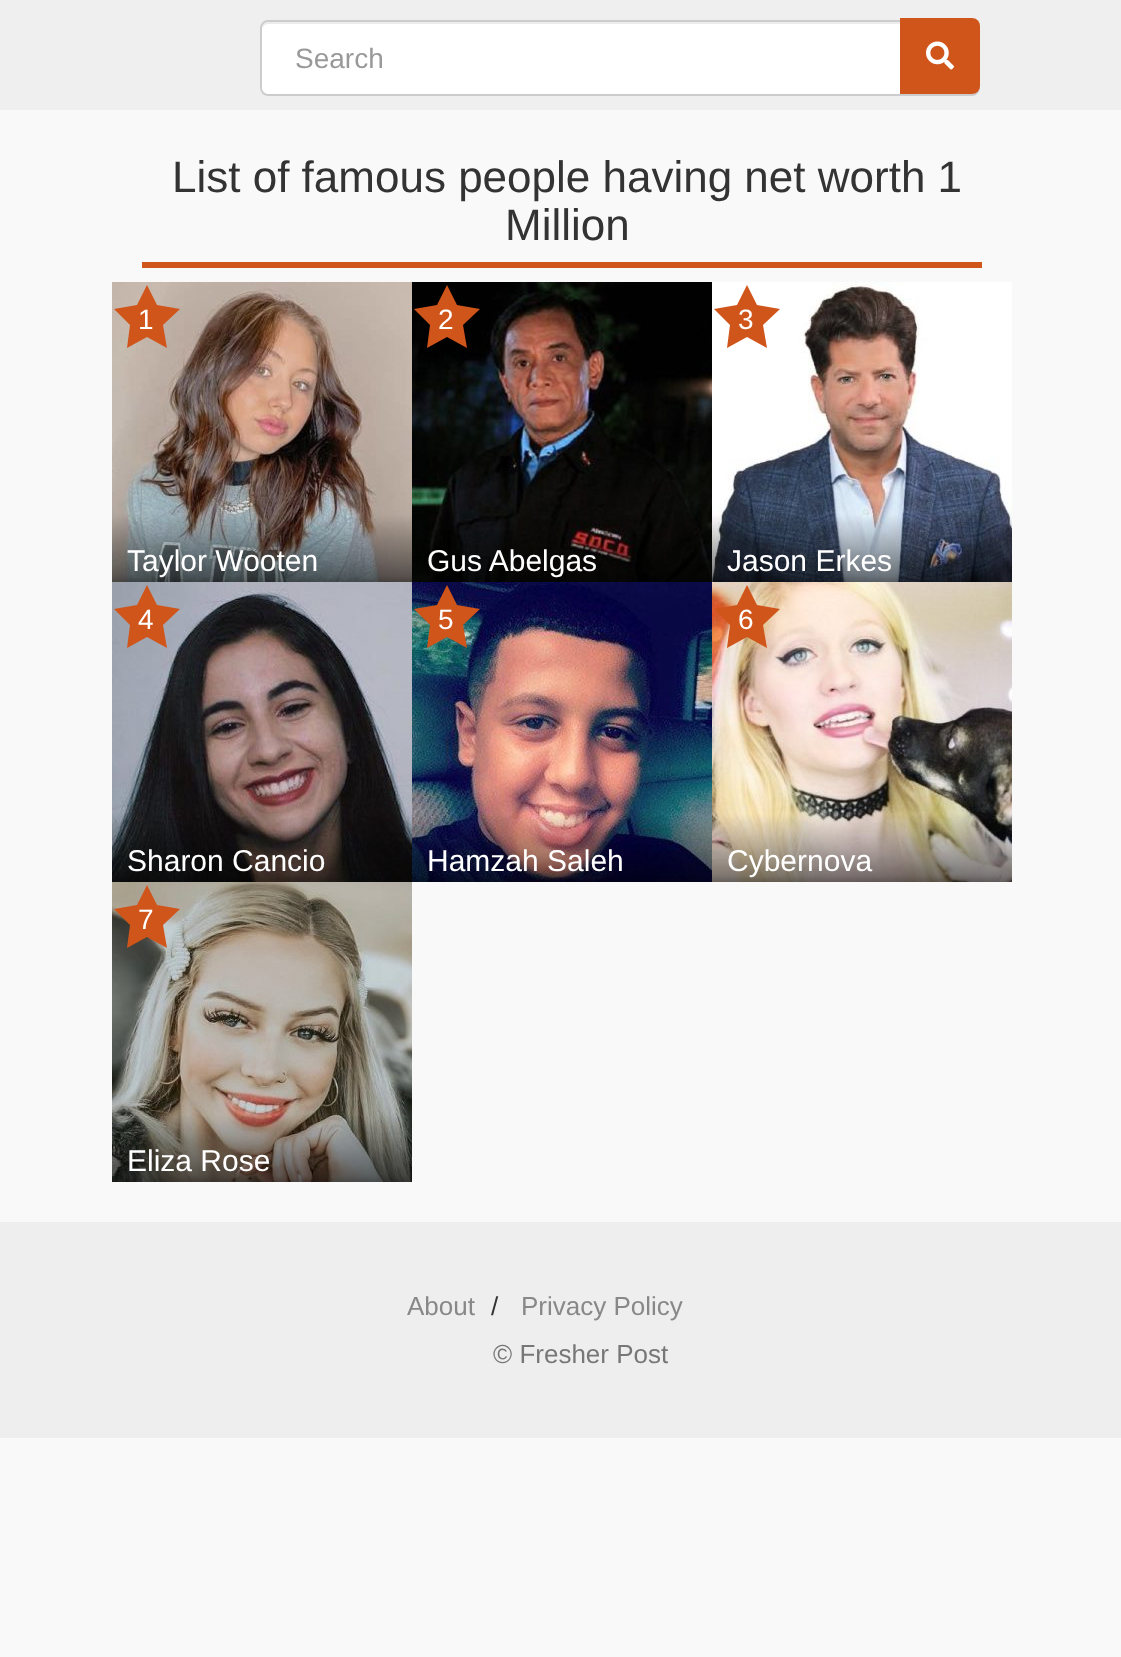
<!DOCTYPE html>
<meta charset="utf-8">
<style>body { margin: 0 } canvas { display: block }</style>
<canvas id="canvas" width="1121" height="1657"></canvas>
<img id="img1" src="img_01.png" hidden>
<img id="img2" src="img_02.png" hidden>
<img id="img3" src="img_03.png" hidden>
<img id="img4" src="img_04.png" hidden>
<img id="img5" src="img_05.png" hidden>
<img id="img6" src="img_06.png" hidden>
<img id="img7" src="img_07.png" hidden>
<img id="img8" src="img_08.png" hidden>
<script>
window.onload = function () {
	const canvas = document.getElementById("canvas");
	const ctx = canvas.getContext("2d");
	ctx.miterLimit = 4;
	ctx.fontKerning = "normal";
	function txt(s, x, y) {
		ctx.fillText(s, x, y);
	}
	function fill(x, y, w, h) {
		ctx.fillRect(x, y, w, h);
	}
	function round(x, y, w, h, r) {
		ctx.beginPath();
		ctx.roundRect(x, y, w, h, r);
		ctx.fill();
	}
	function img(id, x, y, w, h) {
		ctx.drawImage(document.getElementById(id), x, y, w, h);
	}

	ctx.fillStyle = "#F9F9F9";
	fill(0, 0, 1121, 1657);
	ctx.fillStyle = "#EFEFEF";
	fill(0, 0, 1121, 110);
	ctx.fillStyle = "#FFFFFF";
	round(260, 20, 720, 76, 8);
	ctx.fillStyle = "#ECECEC";
	ctx.beginPath();
	ctx.moveTo(268, 24);
	ctx.lineTo(972, 24);
	ctx.bezierCurveTo(975, 24, 978, 27, 978, 30);
	ctx.lineTo(978, 28);
	ctx.bezierCurveTo(978, 25, 975, 22, 972, 22);
	ctx.lineTo(268, 22);
	ctx.bezierCurveTo(265, 22, 262, 25, 262, 28);
	ctx.lineTo(262, 30);
	ctx.bezierCurveTo(262, 27, 265, 24, 268, 24);
	ctx.closePath();
	ctx.fill();
	ctx.beginPath();
	ctx.roundRect(261, 21, 718, 74, 7);
	ctx.strokeStyle = "#CCCCCC";
	ctx.lineWidth = 2;
	ctx.stroke();
	ctx.fillStyle = "#D0551B";
	ctx.beginPath();
	ctx.roundRect(900, 18, 80, 76, [0, 8, 8, 0]);
	ctx.fill();
	img("img1", 926, 41, 28, 29);
	fill(142, 262, 840, 6);
	img("img2", 112, 282, 300, 300);
	ctx.beginPath();
	ctx.moveTo(147, 337);
	ctx.lineTo(127, 348);
	ctx.lineTo(130, 325);
	ctx.lineTo(114, 309);
	ctx.lineTo(137, 305);
	ctx.lineTo(147, 285);
	ctx.lineTo(157, 305);
	ctx.lineTo(180, 309);
	ctx.lineTo(163, 325);
	ctx.lineTo(167, 348);
	ctx.closePath();
	ctx.fill();
	img("img3", 412, 282, 300, 300);
	ctx.beginPath();
	ctx.moveTo(447, 337);
	ctx.lineTo(427, 348);
	ctx.lineTo(430, 325);
	ctx.lineTo(414, 309);
	ctx.lineTo(437, 305);
	ctx.lineTo(447, 285);
	ctx.lineTo(457, 305);
	ctx.lineTo(480, 309);
	ctx.lineTo(463, 325);
	ctx.lineTo(467, 348);
	ctx.closePath();
	ctx.fill();
	img("img4", 712, 282, 300, 300);
	ctx.beginPath();
	ctx.moveTo(747, 337);
	ctx.lineTo(727, 348);
	ctx.lineTo(730, 325);
	ctx.lineTo(714, 309);
	ctx.lineTo(737, 305);
	ctx.lineTo(747, 285);
	ctx.lineTo(757, 305);
	ctx.lineTo(780, 309);
	ctx.lineTo(763, 325);
	ctx.lineTo(767, 348);
	ctx.closePath();
	ctx.fill();
	img("img5", 112, 582, 300, 300);
	ctx.beginPath();
	ctx.moveTo(147, 637);
	ctx.lineTo(127, 648);
	ctx.lineTo(130, 625);
	ctx.lineTo(114, 609);
	ctx.lineTo(137, 605);
	ctx.lineTo(147, 585);
	ctx.lineTo(157, 605);
	ctx.lineTo(180, 609);
	ctx.lineTo(163, 625);
	ctx.lineTo(167, 648);
	ctx.closePath();
	ctx.fill();
	img("img6", 412, 582, 300, 300);
	ctx.beginPath();
	ctx.moveTo(447, 637);
	ctx.lineTo(427, 648);
	ctx.lineTo(430, 625);
	ctx.lineTo(414, 609);
	ctx.lineTo(437, 605);
	ctx.lineTo(447, 585);
	ctx.lineTo(457, 605);
	ctx.lineTo(480, 609);
	ctx.lineTo(463, 625);
	ctx.lineTo(467, 648);
	ctx.closePath();
	ctx.fill();
	img("img7", 712, 582, 300, 300);
	ctx.beginPath();
	ctx.moveTo(747, 637);
	ctx.lineTo(727, 648);
	ctx.lineTo(730, 625);
	ctx.lineTo(714, 609);
	ctx.lineTo(737, 605);
	ctx.lineTo(747, 585);
	ctx.lineTo(757, 605);
	ctx.lineTo(780, 609);
	ctx.lineTo(763, 625);
	ctx.lineTo(767, 648);
	ctx.closePath();
	ctx.fill();
	img("img8", 112, 882, 300, 300);
	ctx.beginPath();
	ctx.moveTo(147, 937);
	ctx.lineTo(127, 948);
	ctx.lineTo(130, 925);
	ctx.lineTo(114, 909);
	ctx.lineTo(137, 905);
	ctx.lineTo(147, 885);
	ctx.lineTo(157, 905);
	ctx.lineTo(180, 909);
	ctx.lineTo(163, 925);
	ctx.lineTo(167, 948);
	ctx.closePath();
	ctx.fill();
	ctx.fillStyle = "#EEEEEE";
	fill(0, 1222, 1121, 216);
	ctx.font = "28px Liberation Sans";
	ctx.fillStyle = "#999999";
	txt("Search", 295, 68);
	ctx.font = "44px Liberation Sans";
	ctx.fillStyle = "#333333";
	txt("List of famous people having net worth 1", 172, 192);
	txt("Million", 505, 240);
	ctx.font = "28px Liberation Sans";
	ctx.fillStyle = "#FFFFFF";
	txt("1", 138, 329);
	ctx.font = "30px Liberation Sans";
	txt("Taylor Wooten", 127, 571);
	ctx.font = "28px Liberation Sans";
	txt("2", 438, 329);
	ctx.font = "30px Liberation Sans";
	txt("Gus Abelgas", 427, 571);
	ctx.font = "28px Liberation Sans";
	txt("3", 738, 329);
	ctx.font = "30px Liberation Sans";
	txt("Jason Erkes", 727, 571);
	ctx.font = "28px Liberation Sans";
	txt("4", 138, 629);
	ctx.font = "30px Liberation Sans";
	txt("Sharon Cancio", 127, 871);
	ctx.font = "28px Liberation Sans";
	txt("5", 438, 629);
	ctx.font = "30px Liberation Sans";
	txt("Hamzah Saleh", 427, 871);
	ctx.font = "28px Liberation Sans";
	txt("6", 738, 629);
	ctx.font = "30px Liberation Sans";
	txt("Cybernova", 727, 871);
	ctx.font = "28px Liberation Sans";
	txt("7", 138, 929);
	ctx.font = "30px Liberation Sans";
	txt("Eliza Rose", 127, 1171);
	ctx.font = "26px Liberation Sans";
	ctx.fillStyle = "#888888";
	txt("About", 407, 1315);
	ctx.fillStyle = "#333333";
	txt("/", 491, 1315);
	ctx.fillStyle = "#888888";
	txt("Privacy Policy", 521, 1315);
	ctx.fillStyle = "#777777";
	txt("© Fresher Post", 493, 1363);
};
</script>
